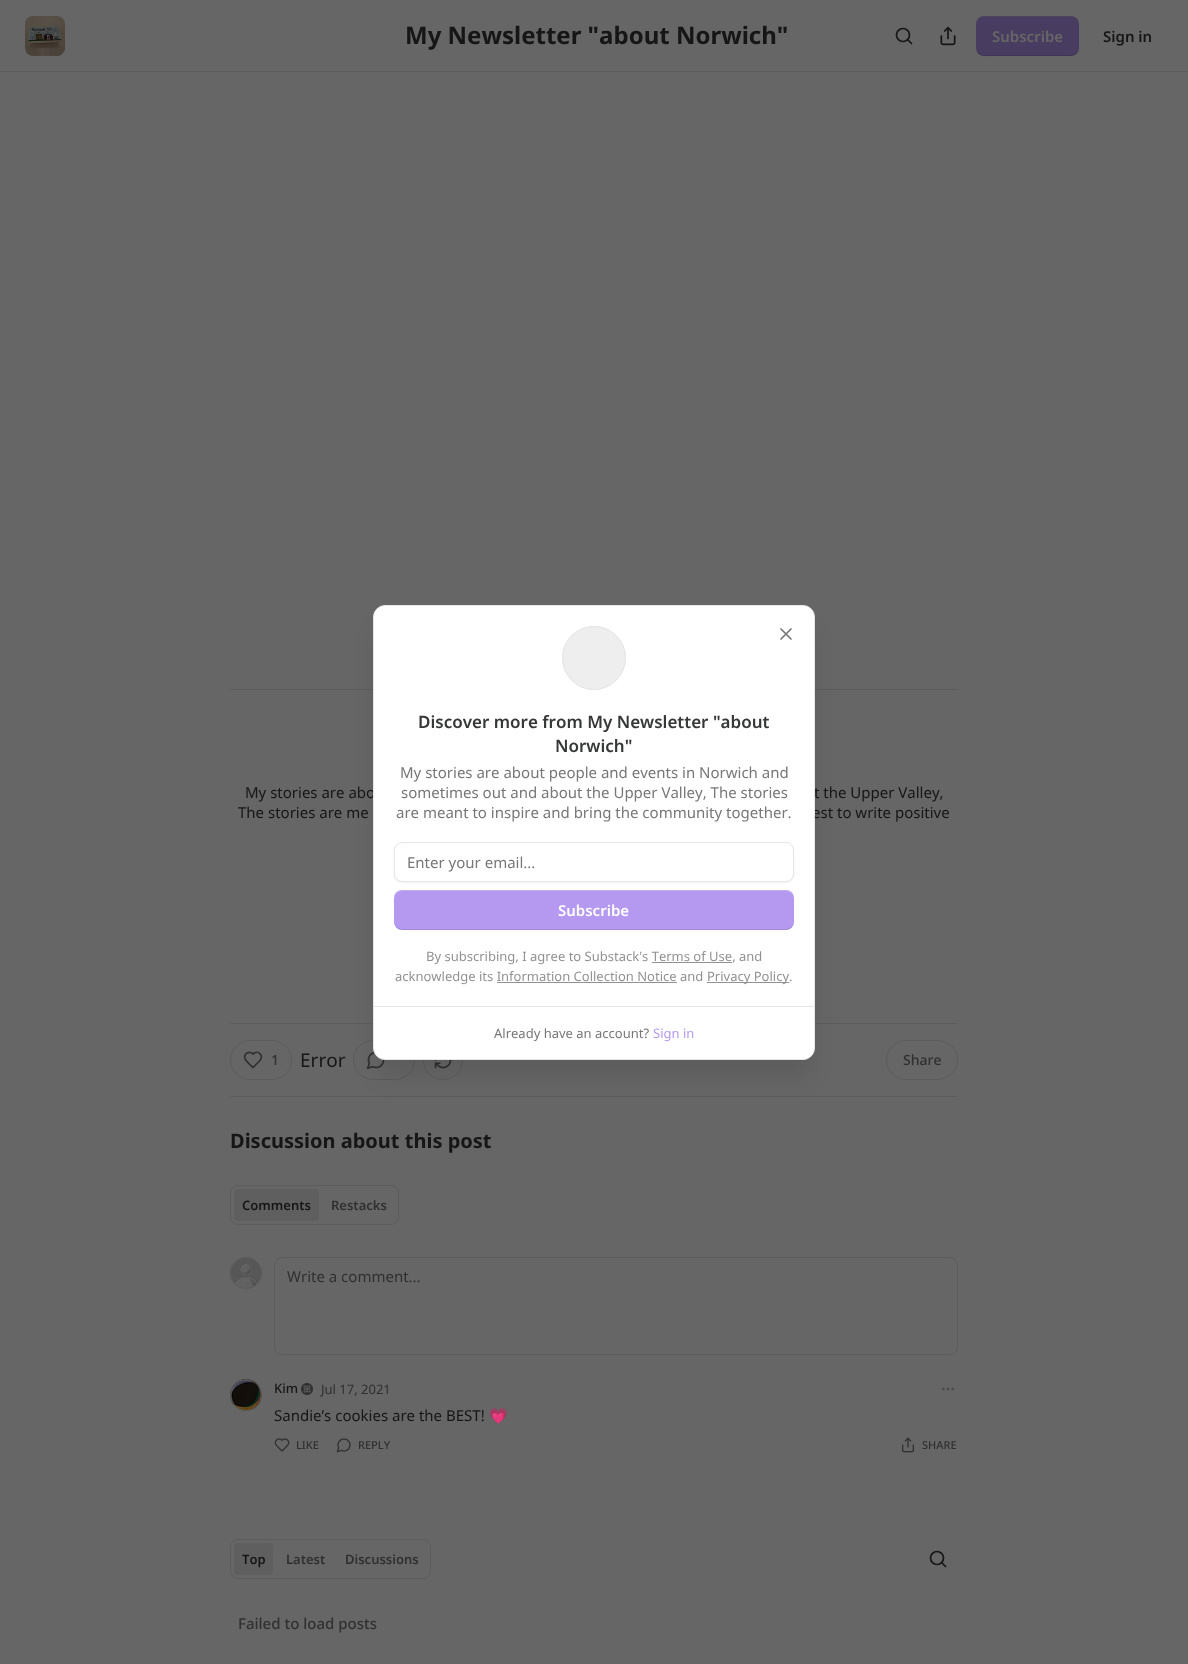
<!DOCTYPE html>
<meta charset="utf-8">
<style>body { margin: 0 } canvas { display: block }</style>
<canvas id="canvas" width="1188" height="1664"></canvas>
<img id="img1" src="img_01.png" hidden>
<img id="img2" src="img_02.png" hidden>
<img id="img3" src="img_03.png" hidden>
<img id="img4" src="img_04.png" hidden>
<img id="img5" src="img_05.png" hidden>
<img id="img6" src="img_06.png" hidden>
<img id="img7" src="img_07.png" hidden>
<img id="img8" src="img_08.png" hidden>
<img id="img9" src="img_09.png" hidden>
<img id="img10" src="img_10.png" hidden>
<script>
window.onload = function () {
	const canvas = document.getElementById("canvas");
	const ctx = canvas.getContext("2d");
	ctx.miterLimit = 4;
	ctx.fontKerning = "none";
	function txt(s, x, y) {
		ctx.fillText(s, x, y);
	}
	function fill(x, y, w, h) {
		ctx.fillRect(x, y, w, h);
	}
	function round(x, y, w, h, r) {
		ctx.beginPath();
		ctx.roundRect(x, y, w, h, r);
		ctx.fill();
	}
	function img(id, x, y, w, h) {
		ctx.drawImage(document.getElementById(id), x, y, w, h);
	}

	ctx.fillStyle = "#666666";
	fill(0, 0, 1188, 1664);
	ctx.fillStyle = "#5C5C5C";
	fill(0, 71, 1188, 1);
	img("img1", 25, 16, 40, 40);
	ctx.beginPath();
	ctx.arc(903, 35, 6.5, 0, Math.PI * 2);
	ctx.strokeStyle = "#161616";
	ctx.lineWidth = 1.7;
	ctx.stroke();
	ctx.beginPath();
	ctx.moveTo(911.5, 43.5);
	ctx.lineTo(908, 40);
	ctx.lineCap = "round";
	ctx.lineJoin = "round";
	ctx.stroke();
	img("img2", 940, 26, 16, 20);
	ctx.fillStyle = "#483D60";
	round(976, 16, 103, 40, 8);
	ctx.fillStyle = "rgba(0, 0, 0, 0.1)";
	ctx.beginPath();
	ctx.moveTo(976, 47);
	ctx.bezierCurveTo(976, 59, 990, 56, 998, 56);
	ctx.lineTo(1056, 56);
	ctx.bezierCurveTo(1065, 56, 1079, 59, 1079, 47);
	ctx.bezierCurveTo(1079, 51, 1075, 55, 1071, 55);
	ctx.lineTo(984, 55);
	ctx.bezierCurveTo(980, 55, 976, 51, 976, 47);
	ctx.closePath();
	ctx.fill();
	ctx.fillStyle = "rgba(102, 102, 102, 0.2)";
	ctx.beginPath();
	ctx.moveTo(984, 17);
	ctx.lineTo(1071, 17);
	ctx.bezierCurveTo(1075, 17, 1079, 21, 1079, 25);
	ctx.bezierCurveTo(1079, 13, 1065, 16, 1056, 16);
	ctx.lineTo(998, 16);
	ctx.bezierCurveTo(990, 16, 976, 13, 976, 25);
	ctx.bezierCurveTo(976, 21, 980, 17, 984, 17);
	ctx.closePath();
	ctx.fill();
	ctx.fillStyle = "#5C5C5C";
	fill(230, 689, 728, 1);
	fill(230, 1023, 728, 1);
	fill(230, 1096, 728, 1);
	ctx.beginPath();
	ctx.roundRect(353.5, 1040.5, 61, 39, 19.5);
	ctx.strokeStyle = "#5C5C5C";
	ctx.lineWidth = 1;
	ctx.lineJoin = "miter";
	ctx.stroke();
	img("img3", 366, 1052, 19, 18);
	ctx.beginPath();
	ctx.arc(443, 1060, 19.5, 0, Math.PI * 2);
	ctx.stroke();
	img("img4", 434, 1060, 18, 9);
	ctx.fillStyle = "rgba(0, 0, 0, 0.1)";
	ctx.filter = "blur(12.5px)";
	ctx.beginPath();
	ctx.roundRect(378, 630, 432, 445, 7);
	ctx.fill();
	ctx.filter = "none";
	ctx.beginPath();
	ctx.roundRect(230.5, 1040.5, 61, 39, 19.5);
	ctx.stroke();
	ctx.beginPath();
	ctx.moveTo(259, 1061.5);
	ctx.bezierCurveTo(265, 1055.5, 258, 1049.5, 253, 1054);
	ctx.bezierCurveTo(249.5, 1050.5, 243.5, 1053.5, 245, 1058.5);
	ctx.bezierCurveTo(246, 1061.5, 251, 1065.5, 253, 1067.5);
	ctx.closePath();
	ctx.strokeStyle = "#303030";
	ctx.lineWidth = 1.7;
	ctx.lineJoin = "round";
	ctx.stroke();
	ctx.beginPath();
	ctx.roundRect(886.5, 1040.5, 71, 39, 19.5);
	ctx.strokeStyle = "#5C5C5C";
	ctx.lineWidth = 1;
	ctx.lineJoin = "miter";
	ctx.stroke();
	ctx.beginPath();
	ctx.roundRect(230.5, 1185.5, 168, 39, 7.5);
	ctx.stroke();
	ctx.fillStyle = "#5F5F5F";
	round(234, 1189, 85, 32, 4);
	ctx.beginPath();
	ctx.arc(246, 1273, 15.5, 0, Math.PI * 2);
	ctx.stroke();
	img("img5", 230, 1257, 32, 32);
	ctx.beginPath();
	ctx.arc(246, 1273, 15.5, 0, Math.PI * 2);
	ctx.stroke();
	ctx.beginPath();
	ctx.roundRect(274.5, 1257.5, 683, 97, 7.5);
	ctx.stroke();
	ctx.beginPath();
	ctx.arc(246, 1395, 15.5, 0, Math.PI * 2);
	ctx.stroke();
	img("img6", 230, 1379, 32, 32);
	ctx.beginPath();
	ctx.arc(246, 1395, 15.5, 0, Math.PI * 2);
	ctx.stroke();
	img("img7", 301, 1383, 12, 12);
	ctx.beginPath();
	ctx.arc(948, 1389, 0.7, 0, Math.PI * 2);
	ctx.strokeStyle = "#494949";
	ctx.lineWidth = 1.3;
	ctx.stroke();
	ctx.beginPath();
	ctx.arc(952.7, 1389, 0.7, 0, Math.PI * 2);
	ctx.stroke();
	ctx.beginPath();
	ctx.arc(943.3, 1389, 0.7, 0, Math.PI * 2);
	ctx.stroke();
	img("img8", 274, 1438, 16, 14);
	img("img9", 336, 1438, 15, 15);
	img("img10", 902, 1437, 12, 16);
	ctx.beginPath();
	ctx.roundRect(230.5, 1539.5, 200, 39, 7.5);
	ctx.strokeStyle = "#5C5C5C";
	ctx.lineWidth = 1;
	ctx.stroke();
	round(234, 1543, 39, 32, 4);
	ctx.beginPath();
	ctx.arc(937, 1558, 6.5, 0, Math.PI * 2);
	ctx.strokeStyle = "#161616";
	ctx.lineWidth = 1.7;
	ctx.stroke();
	ctx.beginPath();
	ctx.moveTo(945.5, 1566.5);
	ctx.lineTo(942, 1563);
	ctx.lineJoin = "round";
	ctx.stroke();
	ctx.font = "bold 24px Noto Sans";
	ctx.fillStyle = "#161616";
	txt("My Newsletter \"about Norwich\"", 405, 44);
	ctx.font = "600 15px Noto Sans";
	ctx.fillStyle = "#666666";
	txt("Subscribe", 992, 42);
	ctx.fillStyle = "#161616";
	txt("Sign in", 1103, 42);
	ctx.font = "15px Noto Sans";
	txt("My stories are abo", 245, 798);
	txt("t the Upper Valley,", 814, 798);
	txt("The stories are me", 238, 818);
	txt("est to write positive", 812, 818);
	ctx.fillStyle = "#FFFFFF";
	ctx.beginPath();
	ctx.roundRect(373.5, 605.5, 441, 454, 11.5);
	ctx.fill();
	ctx.strokeStyle = "#E6E6E6";
	ctx.lineWidth = 1;
	ctx.lineJoin = "miter";
	ctx.stroke();
	ctx.fillStyle = "#929292";
	fill(707, 982, 82, 1);
	ctx.font = "13px Noto Sans";
	txt("Privacy Policy.", 707, 981);
	fill(497, 982, 180, 1);
	txt("acknowledge its Information Collection Notice and", 395, 981);
	fill(652, 962, 80, 1);
	txt("By subscribing, I agree to Substack's Terms of Use, and", 426, 961);
	ctx.fillStyle = "#B599F1";
	round(394, 890, 400, 40, 8);
	ctx.font = "600 15px Noto Sans";
	ctx.fillStyle = "#FFFFFF";
	txt("Subscribe", 558, 916);
	ctx.fillStyle = "rgba(255, 255, 255, 0.2)";
	ctx.beginPath();
	ctx.moveTo(402, 891);
	ctx.lineTo(786, 891);
	ctx.bezierCurveTo(790, 891, 794, 895, 794, 899);
	ctx.lineTo(794, 898);
	ctx.bezierCurveTo(794, 894, 790, 890, 786, 890);
	ctx.lineTo(402, 890);
	ctx.bezierCurveTo(398, 890, 394, 894, 394, 898);
	ctx.lineTo(394, 899);
	ctx.bezierCurveTo(394, 895, 398, 891, 402, 891);
	ctx.closePath();
	ctx.fill();
	ctx.fillStyle = "rgba(0, 0, 0, 0.1)";
	ctx.beginPath();
	ctx.moveTo(394, 921);
	ctx.lineTo(394, 922);
	ctx.bezierCurveTo(394, 926, 398, 930, 402, 930);
	ctx.lineTo(786, 930);
	ctx.bezierCurveTo(790, 930, 794, 926, 794, 922);
	ctx.lineTo(794, 921);
	ctx.bezierCurveTo(794, 925, 790, 929, 786, 929);
	ctx.lineTo(402, 929);
	ctx.bezierCurveTo(398, 929, 394, 925, 394, 921);
	ctx.closePath();
	ctx.fill();
	ctx.fillStyle = "rgba(0, 0, 0, 0.05)";
	ctx.filter = "blur(1px)";
	ctx.beginPath();
	ctx.roundRect(394, 843, 400, 40, 8);
	ctx.fill();
	ctx.filter = "none";
	ctx.fillStyle = "#FFFFFF";
	ctx.beginPath();
	ctx.roundRect(394.5, 842.5, 399, 39, 7.5);
	ctx.fill();
	ctx.stroke();
	ctx.font = "15px Noto Sans";
	ctx.fillStyle = "#777777";
	txt("Enter your email...", 407, 868);
	ctx.beginPath();
	ctx.arc(594, 658, 31.5, 0, Math.PI * 2);
	ctx.stroke();
	ctx.fillStyle = "#EEEEEE";
	ctx.beginPath();
	ctx.arc(594, 658, 31.5, 0, Math.PI * 2);
	ctx.fill();
	ctx.stroke();
	ctx.beginPath();
	ctx.moveTo(791, 629);
	ctx.lineTo(781, 639);
	ctx.moveTo(781, 629);
	ctx.lineTo(791, 639);
	ctx.strokeStyle = "#777777";
	ctx.lineWidth = 1.7;
	ctx.lineJoin = "round";
	ctx.stroke();
	ctx.fillStyle = "#777777";
	txt("are meant to inspire and bring the community together.", 396, 818);
	txt("sometimes out and about the Upper Valley, The stories", 401, 798);
	txt("My stories are about people and events in Norwich and", 400, 778);
	ctx.font = "600 17px Noto Sans";
	ctx.fillStyle = "#363737";
	txt("Norwich\"", 555, 752);
	txt("Discover more from My Newsletter \"about", 418, 728);
	ctx.font = "13px Noto Sans";
	ctx.fillStyle = "#B599F1";
	txt("Sign in", 653, 1038);
	ctx.fillStyle = "#777777";
	txt("Already have an account?", 494, 1038);
	ctx.fillStyle = "#E6E6E6";
	fill(374, 1006, 440, 1);
	ctx.font = "500 14px Noto Sans";
	ctx.fillStyle = "#303030";
	txt("1", 271, 1065);
	ctx.font = "19px Noto Sans";
	ctx.fillStyle = "#161616";
	txt("Error", 300, 1067);
	ctx.font = "500 14px Noto Sans";
	ctx.fillStyle = "#303030";
	txt("Share", 903, 1065);
	ctx.font = "bold 20px Noto Sans";
	ctx.fillStyle = "#161616";
	txt("Discussion about this post", 230, 1148);
	ctx.font = "600 13px Noto Sans";
	txt("Comments", 242, 1210);
	ctx.fillStyle = "#303030";
	txt("Restacks", 331, 1210);
	ctx.font = "15px Noto Sans";
	txt("Write a comment...", 287, 1282);
	ctx.font = "500 13px Noto Sans";
	ctx.fillStyle = "#161616";
	txt("Kim", 274, 1393);
	ctx.font = "13px Noto Sans";
	ctx.fillStyle = "#303030";
	txt("Jul 17, 2021", 321, 1394);
	ctx.font = "15px Noto Sans";
	ctx.fillStyle = "#161616";
	txt("Sandie’s cookies are the BEST!", 274, 1421);
	ctx.font = "15px Noto Color Emoji";
	txt("💗", 489, 1421);
	ctx.font = "500 11px Noto Sans";
	ctx.fillStyle = "#303030";
	txt("LIKE", 296, 1449);
	txt("REPLY", 358, 1449);
	txt("SHARE", 922, 1449);
	ctx.font = "600 13px Noto Sans";
	ctx.fillStyle = "#161616";
	txt("Top", 242, 1564);
	ctx.fillStyle = "#303030";
	txt("Latest", 286, 1564);
	txt("Discussions", 345, 1564);
	ctx.font = "500 15px Noto Sans";
	txt("Failed to load posts", 238, 1629);
};
</script>
